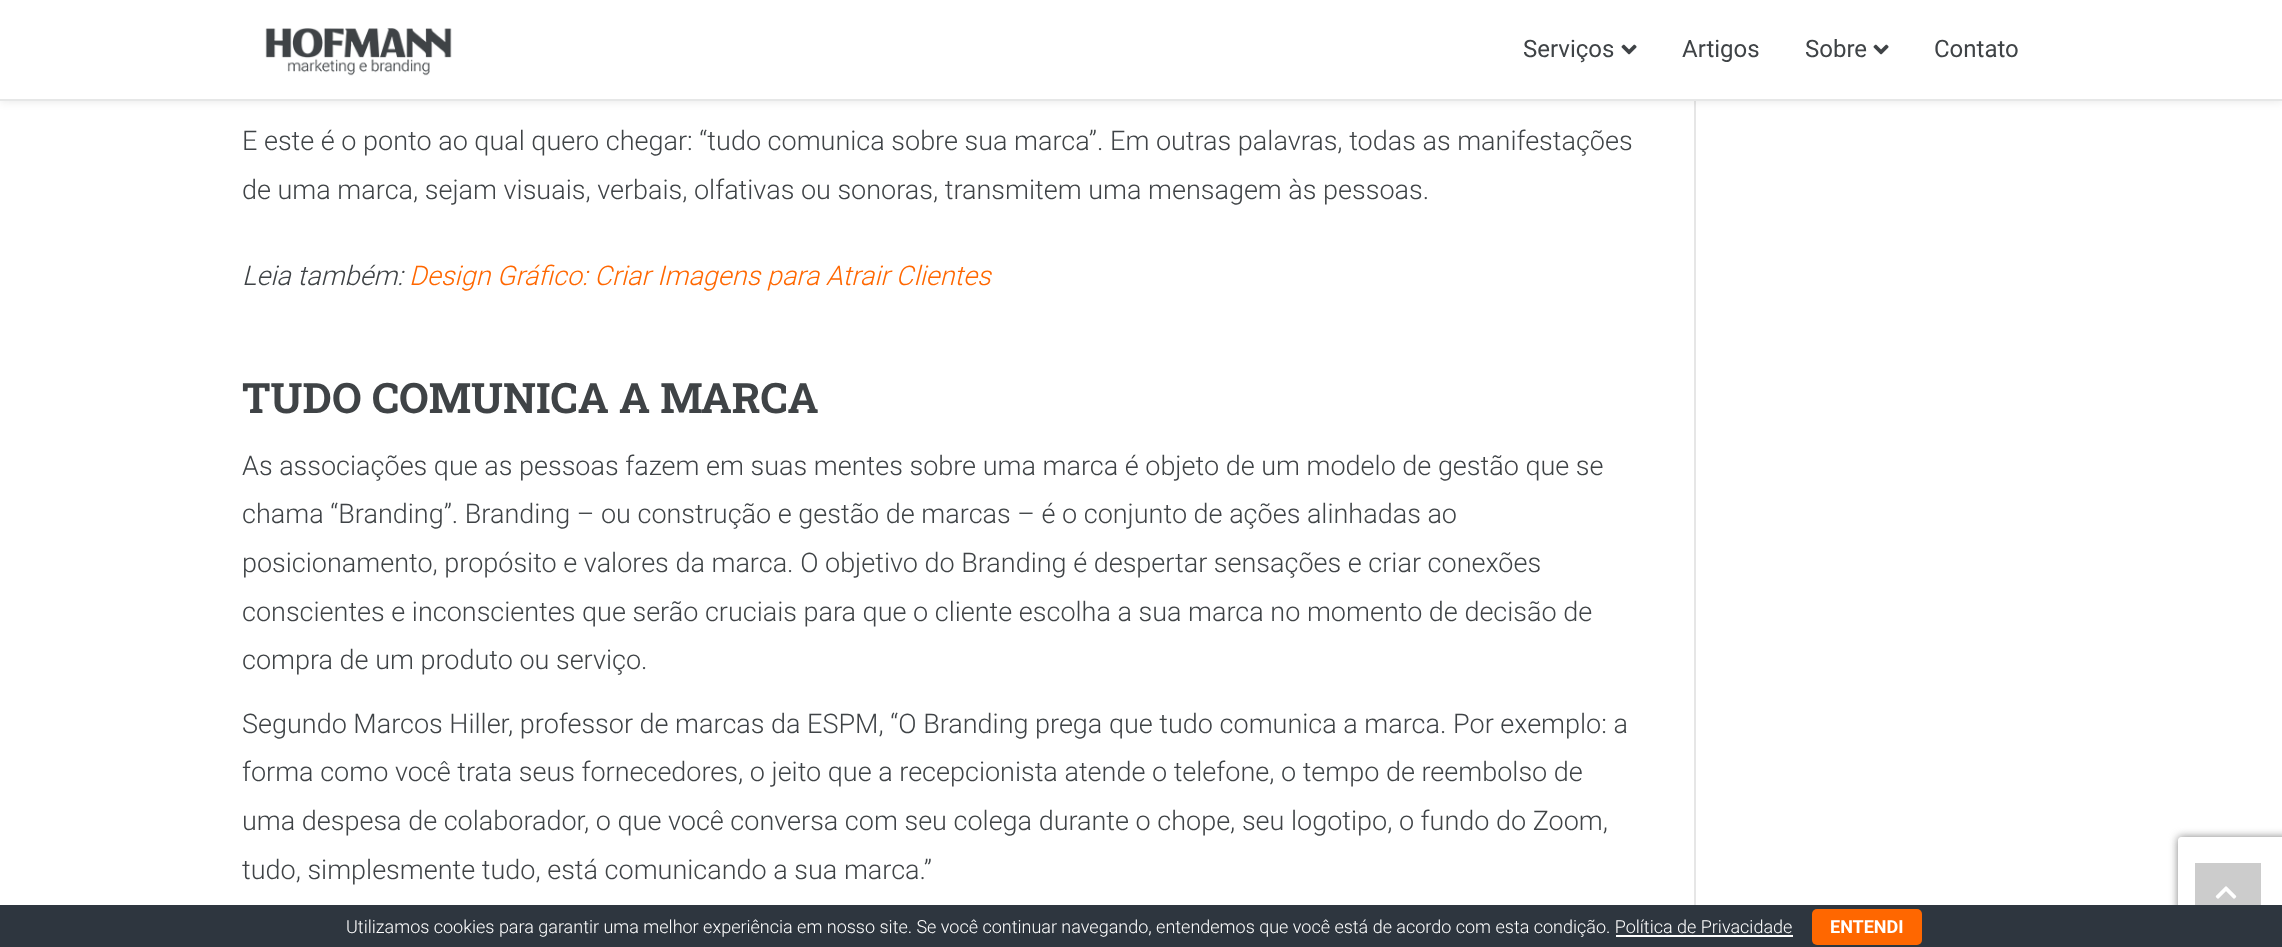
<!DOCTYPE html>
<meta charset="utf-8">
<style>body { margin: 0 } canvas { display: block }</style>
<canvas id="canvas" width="2282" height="947"></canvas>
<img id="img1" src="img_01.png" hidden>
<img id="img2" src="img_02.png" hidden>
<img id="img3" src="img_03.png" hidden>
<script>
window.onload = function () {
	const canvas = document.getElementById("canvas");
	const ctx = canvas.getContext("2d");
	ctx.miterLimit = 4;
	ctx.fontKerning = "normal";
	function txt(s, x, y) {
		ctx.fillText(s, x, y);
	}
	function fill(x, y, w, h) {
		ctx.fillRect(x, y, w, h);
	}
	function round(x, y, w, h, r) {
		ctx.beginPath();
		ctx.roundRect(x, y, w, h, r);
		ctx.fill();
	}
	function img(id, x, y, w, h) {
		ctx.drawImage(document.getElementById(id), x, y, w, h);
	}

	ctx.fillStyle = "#FFFFFF";
	fill(0, 0, 2282, 947);
	ctx.fillStyle = "#E6E6E6";
	fill(1694, 101, 2, 804);
	ctx.fillStyle = "rgba(0, 0, 0, 0.1)";
	ctx.filter = "blur(5px)";
	ctx.beginPath();
	ctx.rect(0, 0, 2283, 101);
	ctx.fill();
	ctx.filter = "none";
	ctx.fillStyle = "#FFFFFF";
	fill(0, 0, 2282, 99);
	ctx.fillStyle = "#E6E7E7";
	fill(0, 99, 2282, 2);
	img("img1", 265, 28, 187, 48);
	img("img2", 1621, 44, 16, 11);
	img("img2", 1873, 44, 16, 11);
	ctx.save();
	ctx.beginPath();
	ctx.moveTo(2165, 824);
	ctx.lineTo(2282, 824);
	ctx.lineTo(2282, 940);
	ctx.lineTo(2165, 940);
	ctx.closePath();
	ctx.moveTo(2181, 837);
	ctx.lineTo(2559, 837);
	ctx.bezierCurveTo(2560.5, 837, 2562, 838.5, 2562, 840);
	ctx.lineTo(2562, 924);
	ctx.bezierCurveTo(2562, 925.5, 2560.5, 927, 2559, 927);
	ctx.lineTo(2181, 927);
	ctx.bezierCurveTo(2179.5, 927, 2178, 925.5, 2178, 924);
	ctx.lineTo(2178, 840);
	ctx.bezierCurveTo(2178, 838.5, 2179.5, 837, 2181, 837);
	ctx.closePath();
	ctx.clip("evenodd");
	ctx.fillStyle = "#808080";
	ctx.filter = "blur(4px)";
	ctx.beginPath();
	ctx.roundRect(2178, 837, 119, 90, 3);
	ctx.fill();
	ctx.filter = "none";
	ctx.restore();
	ctx.fillStyle = "#CCCCCC";
	fill(2195, 863, 66, 42);
	img("img3", 2215, 886, 22, 13);
	ctx.fillStyle = "#2E363F";
	fill(0, 905, 2282, 42);
	ctx.fillStyle = "#FF6700";
	round(1812, 909, 110, 36, 5);
	ctx.fillStyle = "#FFFFFF";
	fill(1616, 935, 177, 2);
	ctx.font = "24px Roboto";
	ctx.fillStyle = "#3F4346";
	txt("Serviços", 1523, 57);
	txt("Artigos", 1682, 57);
	txt("Sobre", 1805, 57);
	txt("Contato", 1934, 57);
	ctx.font = "300 27px Roboto";
	txt("E este é o ponto ao qual quero chegar: “tudo comunica sobre sua marca”. Em outras palavras, todas as manifestações", 242, 150);
	txt("de uma marca, sejam visuais, verbais, olfativas ou sonoras, transmitem uma mensagem às pessoas.", 242, 199);
	ctx.font = "italic 300 27px Roboto";
	txt("Leia também:", 242, 285);
	ctx.fillStyle = "#FF6700";
	txt("Design Gráfico: Criar Imagens para Atrair Clientes", 409, 285);
	ctx.font = "bold 42px Roboto Slab";
	ctx.fillStyle = "#3F4346";
	txt("TUDO COMUNICA A MARCA", 242, 413);
	ctx.font = "300 27px Roboto";
	txt("As associações que as pessoas fazem em suas mentes sobre uma marca é objeto de um modelo de gestão que se", 242, 475);
	txt("chama “Branding”. Branding – ou construção e gestão de marcas – é o conjunto de ações alinhadas ao", 242, 523);
	txt("posicionamento, propósito e valores da marca. O objetivo do Branding é despertar sensações e criar conexões", 242, 572);
	txt("conscientes e inconscientes que serão cruciais para que o cliente escolha a sua marca no momento de decisão de", 242, 621);
	txt("compra de um produto ou serviço.", 242, 669);
	txt("Segundo Marcos Hiller, professor de marcas da ESPM, “O Branding prega que tudo comunica a marca. Por exemplo: a", 242, 733);
	txt("forma como você trata seus fornecedores, o jeito que a recepcionista atende o telefone, o tempo de reembolso de", 242, 781);
	txt("uma despesa de colaborador, o que você conversa com seu colega durante o chope, seu logotipo, o fundo do Zoom,", 242, 830);
	txt("tudo, simplesmente tudo, está comunicando a sua marca.”", 242, 879);
	ctx.font = "300 18px Roboto";
	ctx.fillStyle = "#FFFFFF";
	txt("Utilizamos cookies para garantir uma melhor experiência em nosso site. Se você continuar navegando, entendemos que você está de acordo com esta condição. Política de Privacidade", 346, 933);
	ctx.font = "bold 18px Roboto";
	txt("ENTENDI", 1830, 933);
};
</script>
